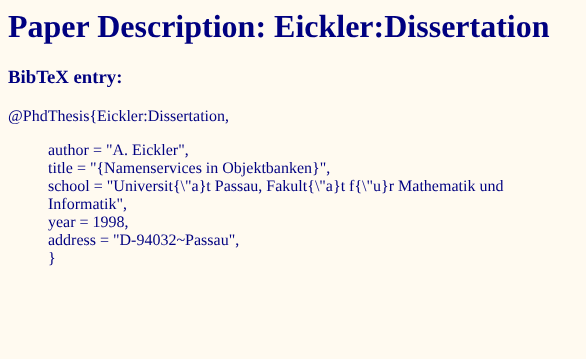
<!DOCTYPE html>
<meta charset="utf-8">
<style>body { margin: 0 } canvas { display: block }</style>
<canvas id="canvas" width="586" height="359"></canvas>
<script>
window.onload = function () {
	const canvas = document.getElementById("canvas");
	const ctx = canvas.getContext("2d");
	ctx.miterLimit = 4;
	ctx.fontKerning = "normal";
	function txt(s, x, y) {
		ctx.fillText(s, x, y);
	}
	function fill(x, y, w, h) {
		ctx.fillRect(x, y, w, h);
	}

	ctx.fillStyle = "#FFFAF0";
	fill(0, 0, 586, 359);
	ctx.font = "bold 32px Liberation Serif";
	ctx.fillStyle = "#000080";
	txt("Paper Description: Eickler:Dissertation", 8, 37);
	ctx.font = "bold 18.75px Liberation Serif";
	txt("BibTeX entry:", 8, 83);
	ctx.font = "16px Liberation Serif";
	txt("@PhdThesis{Eickler:Dissertation,", 8, 121);
	txt("author = \"A. Eickler\",", 48, 155);
	txt("title = \"{Namenservices in Objektbanken}\",", 48, 173);
	txt("school = \"Universit{\\\"a}t Passau, Fakult{\\\"a}t f{\\\"u}r Mathematik und", 48, 191);
	txt("Informatik\",", 48, 209);
	txt("year = 1998,", 48, 227);
	txt("address = \"D-94032~Passau\",", 48, 245);
	txt("}", 48, 263);
};
</script>
